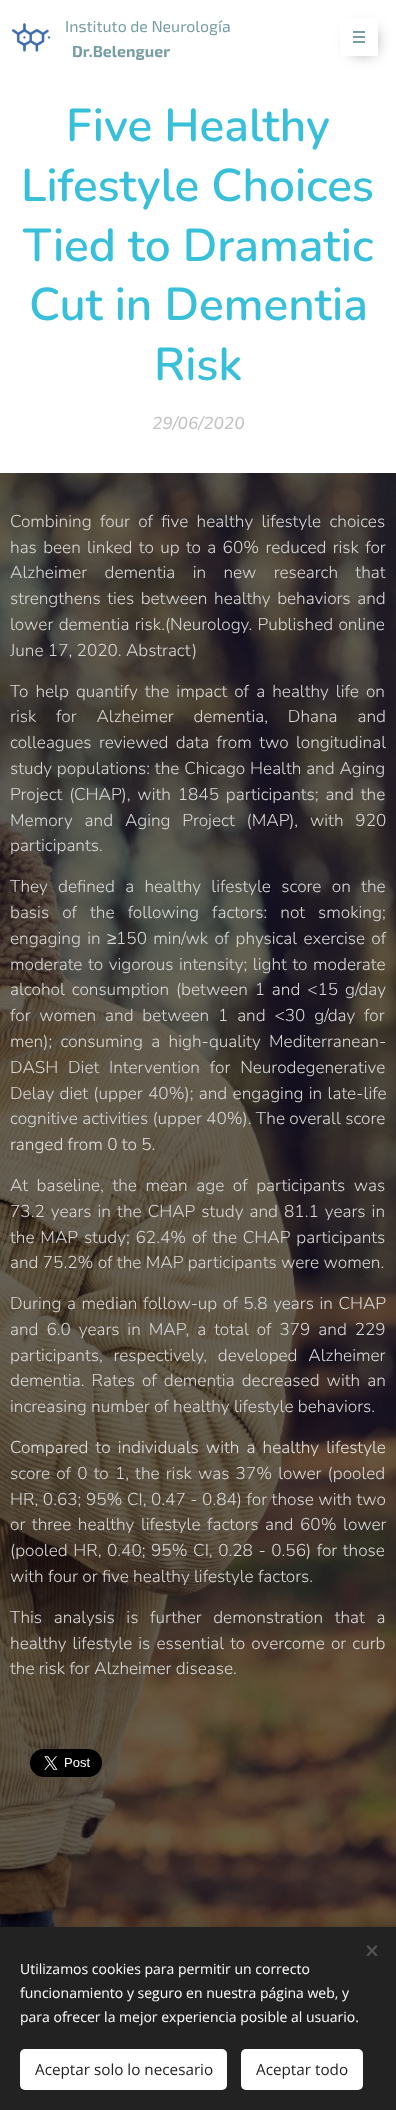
<!DOCTYPE html>
<meta charset="utf-8">
<style>body { margin: 0 } canvas { display: block }</style>
<canvas id="canvas" width="396" height="2110"></canvas>
<img id="img1" src="img_01.png" hidden>
<img id="img2" src="img_02.png" hidden>
<img id="img3" src="img_03.png" hidden>
<script>
window.onload = function () {
	const canvas = document.getElementById("canvas");
	const ctx = canvas.getContext("2d");
	ctx.miterLimit = 4;
	ctx.fontKerning = "normal";
	function txt(s, x, y) {
		ctx.fillText(s, x, y);
	}
	function fill(x, y, w, h) {
		ctx.fillRect(x, y, w, h);
	}
	function round(x, y, w, h, r) {
		ctx.beginPath();
		ctx.roundRect(x, y, w, h, r);
		ctx.fill();
	}
	function img(id, x, y, w, h) {
		ctx.drawImage(document.getElementById(id), x, y, w, h);
	}

	ctx.fillStyle = "#FFFFFF";
	fill(0, 0, 396, 2110);
	img("img1", 11, 22, 40, 30);
	ctx.save();
	ctx.beginPath();
	ctx.moveTo(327, 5);
	ctx.lineTo(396, 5);
	ctx.lineTo(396, 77);
	ctx.lineTo(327, 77);
	ctx.closePath();
	ctx.moveTo(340, 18);
	ctx.lineTo(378, 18);
	ctx.lineTo(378, 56);
	ctx.lineTo(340, 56);
	ctx.closePath();
	ctx.clip("evenodd");
	ctx.fillStyle = "rgba(0, 0, 0, 0.5)";
	ctx.filter = "blur(8px)";
	ctx.beginPath();
	ctx.rect(352, 30, 22, 22);
	ctx.fill();
	ctx.filter = "none";
	ctx.restore();
	ctx.fillStyle = "#789EA4";
	fill(353, 36, 12, 2);
	fill(353, 31, 12, 2);
	fill(353, 41, 12, 2);
	img("img2", 0, 473, 396, 1454);
	img("img3", 30, 1749, 72, 28);
	ctx.fillStyle = "rgba(0, 0, 0, 0.33)";
	ctx.filter = "blur(12.5px)";
	ctx.beginPath();
	ctx.rect(0, 1927, 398, 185);
	ctx.fill();
	ctx.filter = "none";
	ctx.fillStyle = "#222222";
	fill(0, 1927, 396, 183);
	ctx.fillStyle = "#555555";
	ctx.beginPath();
	ctx.moveTo(366.5, 1955);
	ctx.lineTo(376, 1945);
	ctx.lineTo(377.5, 1946.5);
	ctx.lineTo(368, 1956.5);
	ctx.closePath();
	ctx.fill();
	ctx.beginPath();
	ctx.moveTo(368, 1945);
	ctx.lineTo(377.5, 1955);
	ctx.lineTo(376, 1956.5);
	ctx.lineTo(366.5, 1946.5);
	ctx.closePath();
	ctx.fill();
	ctx.fillStyle = "#FFFFFF";
	round(20, 2049, 207, 41, 5);
	round(241, 2049, 122, 41, 5);
	ctx.font = "15.9px 'Exo 2'";
	ctx.fillStyle = "#789EA4";
	txt("Instituto de Neurología", 65, 32);
	ctx.font = "bold 15.9px 'Exo 2'";
	txt("Dr.Belenguer", 72, 57);
	ctx.font = "600 46px Nunito";
	ctx.fillStyle = "#38C0DA";
	txt("Five Healthy", 66, 141);
	txt("Lifestyle Choices", 21, 201);
	txt("Tied to Dramatic", 23, 261);
	txt("Cut in Dementia", 29, 320);
	txt("Risk", 154, 380);
	ctx.font = "italic 500 17.2px Nunito";
	ctx.fillStyle = "#C3C3C3";
	txt("29/06/2020", 152, 429);
	ctx.wordSpacing = "4px";
	ctx.font = "300 17.2px Nunito";
	ctx.fillStyle = "#D8D7D6";
	txt("Combining four of five healthy lifestyle choices", 10, 527);
	ctx.wordSpacing = "2px";
	txt("has been linked to up to a 60% reduced risk for", 10, 553);
	ctx.wordSpacing = "13px";
	txt("Alzheimer dementia in new research that", 10, 578);
	ctx.wordSpacing = "2.25px";
	txt("strengthens ties between healthy behaviors and", 10, 604);
	ctx.wordSpacing = "1px";
	txt("lower dementia risk.(Neurology. Published online", 10, 630);
	ctx.wordSpacing = "0px";
	txt("June 17, 2020. Abstract)", 10, 656);
	ctx.wordSpacing = "2.75px";
	txt("To help quantify the impact of a healthy life on", 10, 697);
	ctx.wordSpacing = "15.5px";
	txt("risk for Alzheimer dementia, Dhana and", 10, 722);
	ctx.wordSpacing = "3px";
	txt("colleagues reviewed data from two longitudinal", 10, 748);
	ctx.wordSpacing = "0.5px";
	txt("study populations: the Chicago Health and Aging", 10, 774);
	ctx.wordSpacing = "2.5px";
	txt("Project (CHAP), with 1845 participants; and the", 10, 800);
	ctx.wordSpacing = "7.5px";
	txt("Memory and Aging Project (MAP), with 920", 10, 826);
	ctx.wordSpacing = "0px";
	txt("participants.", 10, 851);
	ctx.wordSpacing = "6px";
	txt("They defined a healthy lifestyle score on the", 10, 892);
	ctx.wordSpacing = "8.75px";
	txt("basis of the following factors: not smoking;", 10, 918);
	ctx.wordSpacing = "2px";
	txt("engaging in", 10, 944);
	ctx.wordSpacing = "0px";
	ctx.font = "17.2px Liberation Sans";
	txt("≥", 107, 944);
	ctx.wordSpacing = "2px";
	ctx.font = "300 17.2px Nunito";
	txt("150 min/wk of physical exercise of", 116, 944);
	ctx.wordSpacing = "1.25px";
	txt("moderate to vigorous intensity; light to moderate", 10, 970);
	ctx.wordSpacing = "2.5px";
	txt("alcohol consumption (between 1 and <15 g/day", 10, 995);
	ctx.wordSpacing = "4.5px";
	txt("for women and between 1 and <30 g/day for", 10, 1021);
	ctx.wordSpacing = "4px";
	txt("men); consuming a high-quality Mediterranean-", 10, 1047);
	ctx.wordSpacing = "5.5px";
	txt("DASH Diet Intervention for Neurodegenerative", 10, 1073);
	ctx.wordSpacing = "1px";
	txt("Delay diet (upper 40%); and engaging in late-life", 10, 1099);
	ctx.wordSpacing = "0px";
	txt("cognitive activities (upper 40%). The overall score", 10, 1124);
	ctx.fillStyle = "#E0DEDB";
	txt("ranged from 0 to 5.", 10, 1150);
	ctx.wordSpacing = "4.25px";
	ctx.fillStyle = "#D8D7D6";
	txt("At baseline, the mean age of participants was", 10, 1191);
	ctx.wordSpacing = "1.75px";
	txt("73.2 years in the CHAP study and 81.1 years in", 10, 1217);
	ctx.wordSpacing = "1.5px";
	txt("the MAP study; 62.4% of the CHAP participants", 10, 1243);
	ctx.wordSpacing = "0px";
	txt("and 75.2% of the MAP participants were women.", 10, 1268);
	ctx.wordSpacing = "1.25px";
	txt("During a median follow-up of 5.8 years in CHAP", 10, 1309);
	ctx.wordSpacing = "3.6px";
	txt("and 6.0 years in MAP, a total of 379 and 229", 10, 1335);
	ctx.wordSpacing = "6.5px";
	txt("participants, respectively, developed Alzheimer", 10, 1361);
	ctx.wordSpacing = "2.75px";
	txt("dementia. Rates of dementia decreased with an", 10, 1386);
	ctx.wordSpacing = "0px";
	txt("increasing number of healthy lifestyle behaviors.", 10, 1412);
	ctx.wordSpacing = "2.75px";
	ctx.fillStyle = "#E0DEDB";
	txt("Compared to individuals with a healthy lifestyle", 10, 1453);
	ctx.wordSpacing = "1.8px";
	ctx.fillStyle = "#D8D7D6";
	txt("score of 0 to 1, the risk was 37% lower (pooled", 10, 1479);
	ctx.wordSpacing = "0.25px";
	txt("HR, 0.63; 95% CI, 0.47 - 0.84) for those with two", 10, 1505);
	ctx.wordSpacing = "2.25px";
	txt("or three healthy lifestyle factors and 60% lower", 10, 1530);
	ctx.wordSpacing = "1.25px";
	txt("(pooled HR, 0.40; 95% CI, 0.28 - 0.56) for those", 10, 1556);
	ctx.wordSpacing = "0px";
	txt("with four or five healthy lifestyle factors.", 10, 1582);
	ctx.wordSpacing = "7.25px";
	txt("This analysis is further demonstration that a", 10, 1623);
	ctx.wordSpacing = "1.75px";
	txt("healthy lifestyle is essential to overcome or curb", 10, 1649);
	ctx.wordSpacing = "0px";
	txt("the risk for Alzheimer disease.", 10, 1674);
	ctx.font = "14px Open Sans";
	ctx.fillStyle = "#FFFFFF";
	txt("Utilizamos cookies para permitir un correcto", 20, 1974);
	txt("funcionamiento y seguro en nuestra página web, y", 20, 1998);
	txt("para ofrecer la mejor experiencia posible al usuario.", 20, 2022);
	ctx.font = "15.25px Open Sans";
	ctx.fillStyle = "#222222";
	txt("Aceptar solo lo necesario", 35, 2075);
	txt("Aceptar todo", 256, 2075);
};
</script>
